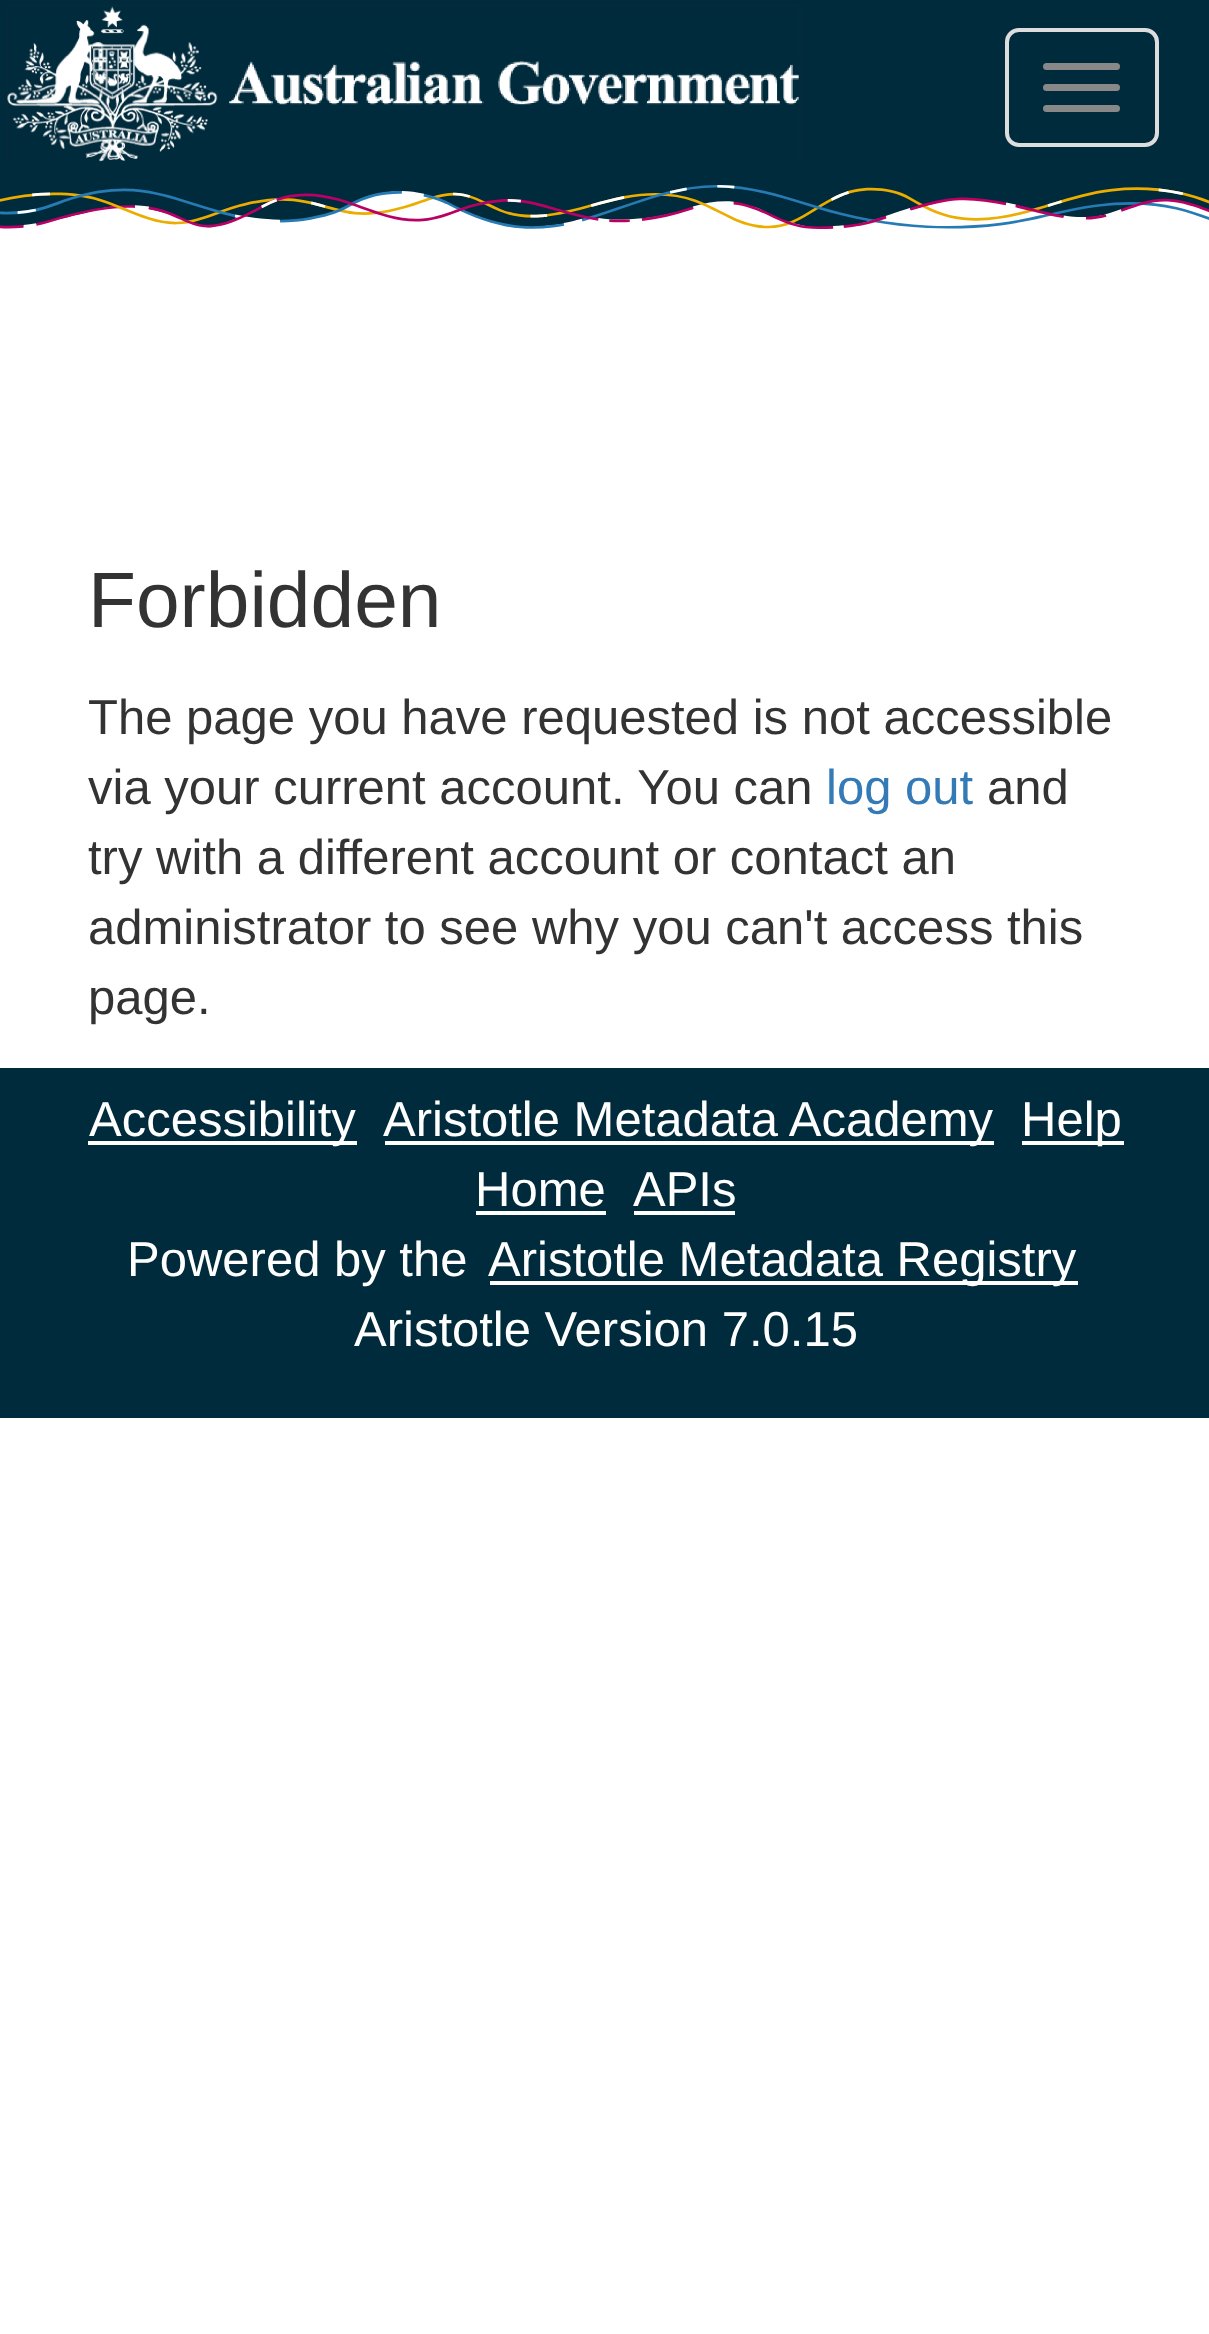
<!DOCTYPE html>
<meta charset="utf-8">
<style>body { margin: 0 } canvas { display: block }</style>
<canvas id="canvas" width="1209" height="2334"></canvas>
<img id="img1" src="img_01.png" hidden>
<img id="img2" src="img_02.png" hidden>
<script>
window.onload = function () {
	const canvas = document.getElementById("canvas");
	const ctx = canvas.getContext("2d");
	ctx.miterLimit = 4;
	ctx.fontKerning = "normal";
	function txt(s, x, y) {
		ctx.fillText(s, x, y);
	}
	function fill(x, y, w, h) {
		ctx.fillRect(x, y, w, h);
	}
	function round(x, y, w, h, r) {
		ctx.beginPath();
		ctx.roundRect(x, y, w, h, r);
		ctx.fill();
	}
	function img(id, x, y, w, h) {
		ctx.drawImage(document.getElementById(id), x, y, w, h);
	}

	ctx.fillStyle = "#FFFFFF";
	fill(0, 0, 1209, 2334);
	ctx.fillStyle = "#002B3C";
	fill(0, 0, 1209, 175);
	img("img1", 7, 5, 794, 158);
	ctx.beginPath();
	ctx.roundRect(1007, 30, 150, 115, 12);
	ctx.strokeStyle = "#DDDDDD";
	ctx.lineWidth = 4;
	ctx.stroke();
	ctx.fillStyle = "#888888";
	round(1043, 63, 77, 7, 3.5);
	round(1043, 84, 77, 7, 3.5);
	round(1043, 105, 77, 7, 3.5);
	img("img2", 0, 175, 1209, 54);
	ctx.fillStyle = "#002B3C";
	fill(0, 1068, 1209, 350);
	ctx.fillStyle = "#FFFFFF";
	fill(88, 1141, 269, 4);
	fill(385, 1141, 609, 4);
	fill(1022, 1141, 102, 4);
	fill(476, 1211, 130, 4);
	fill(634, 1211, 101, 4);
	fill(490, 1281, 588, 4);
	ctx.font = "78.5px Liberation Sans";
	ctx.fillStyle = "#333333";
	txt("Forbidden", 88, 627);
	ctx.font = "49px Liberation Sans";
	txt("The page you have requested is not accessible", 88, 734);
	txt("via your current account. You can", 88, 804);
	ctx.fillStyle = "#337AB7";
	txt("log out", 826, 804);
	ctx.fillStyle = "#333333";
	txt("and", 987, 804);
	txt("try with a different account or contact an", 88, 874);
	txt("administrator to see why you can't access this", 88, 944);
	txt("page.", 88, 1014);
	ctx.fillStyle = "#FFFFFF";
	txt("Accessibility", 89, 1136);
	txt("Aristotle Metadata Academy", 383, 1136);
	txt("Help", 1021, 1136);
	txt("Home", 475, 1206);
	txt("APIs", 633, 1206);
	txt("Powered by the", 127, 1276);
	txt("Aristotle Metadata Registry", 488, 1276);
	txt("Aristotle Version 7.0.15", 354, 1346);
};
</script>
